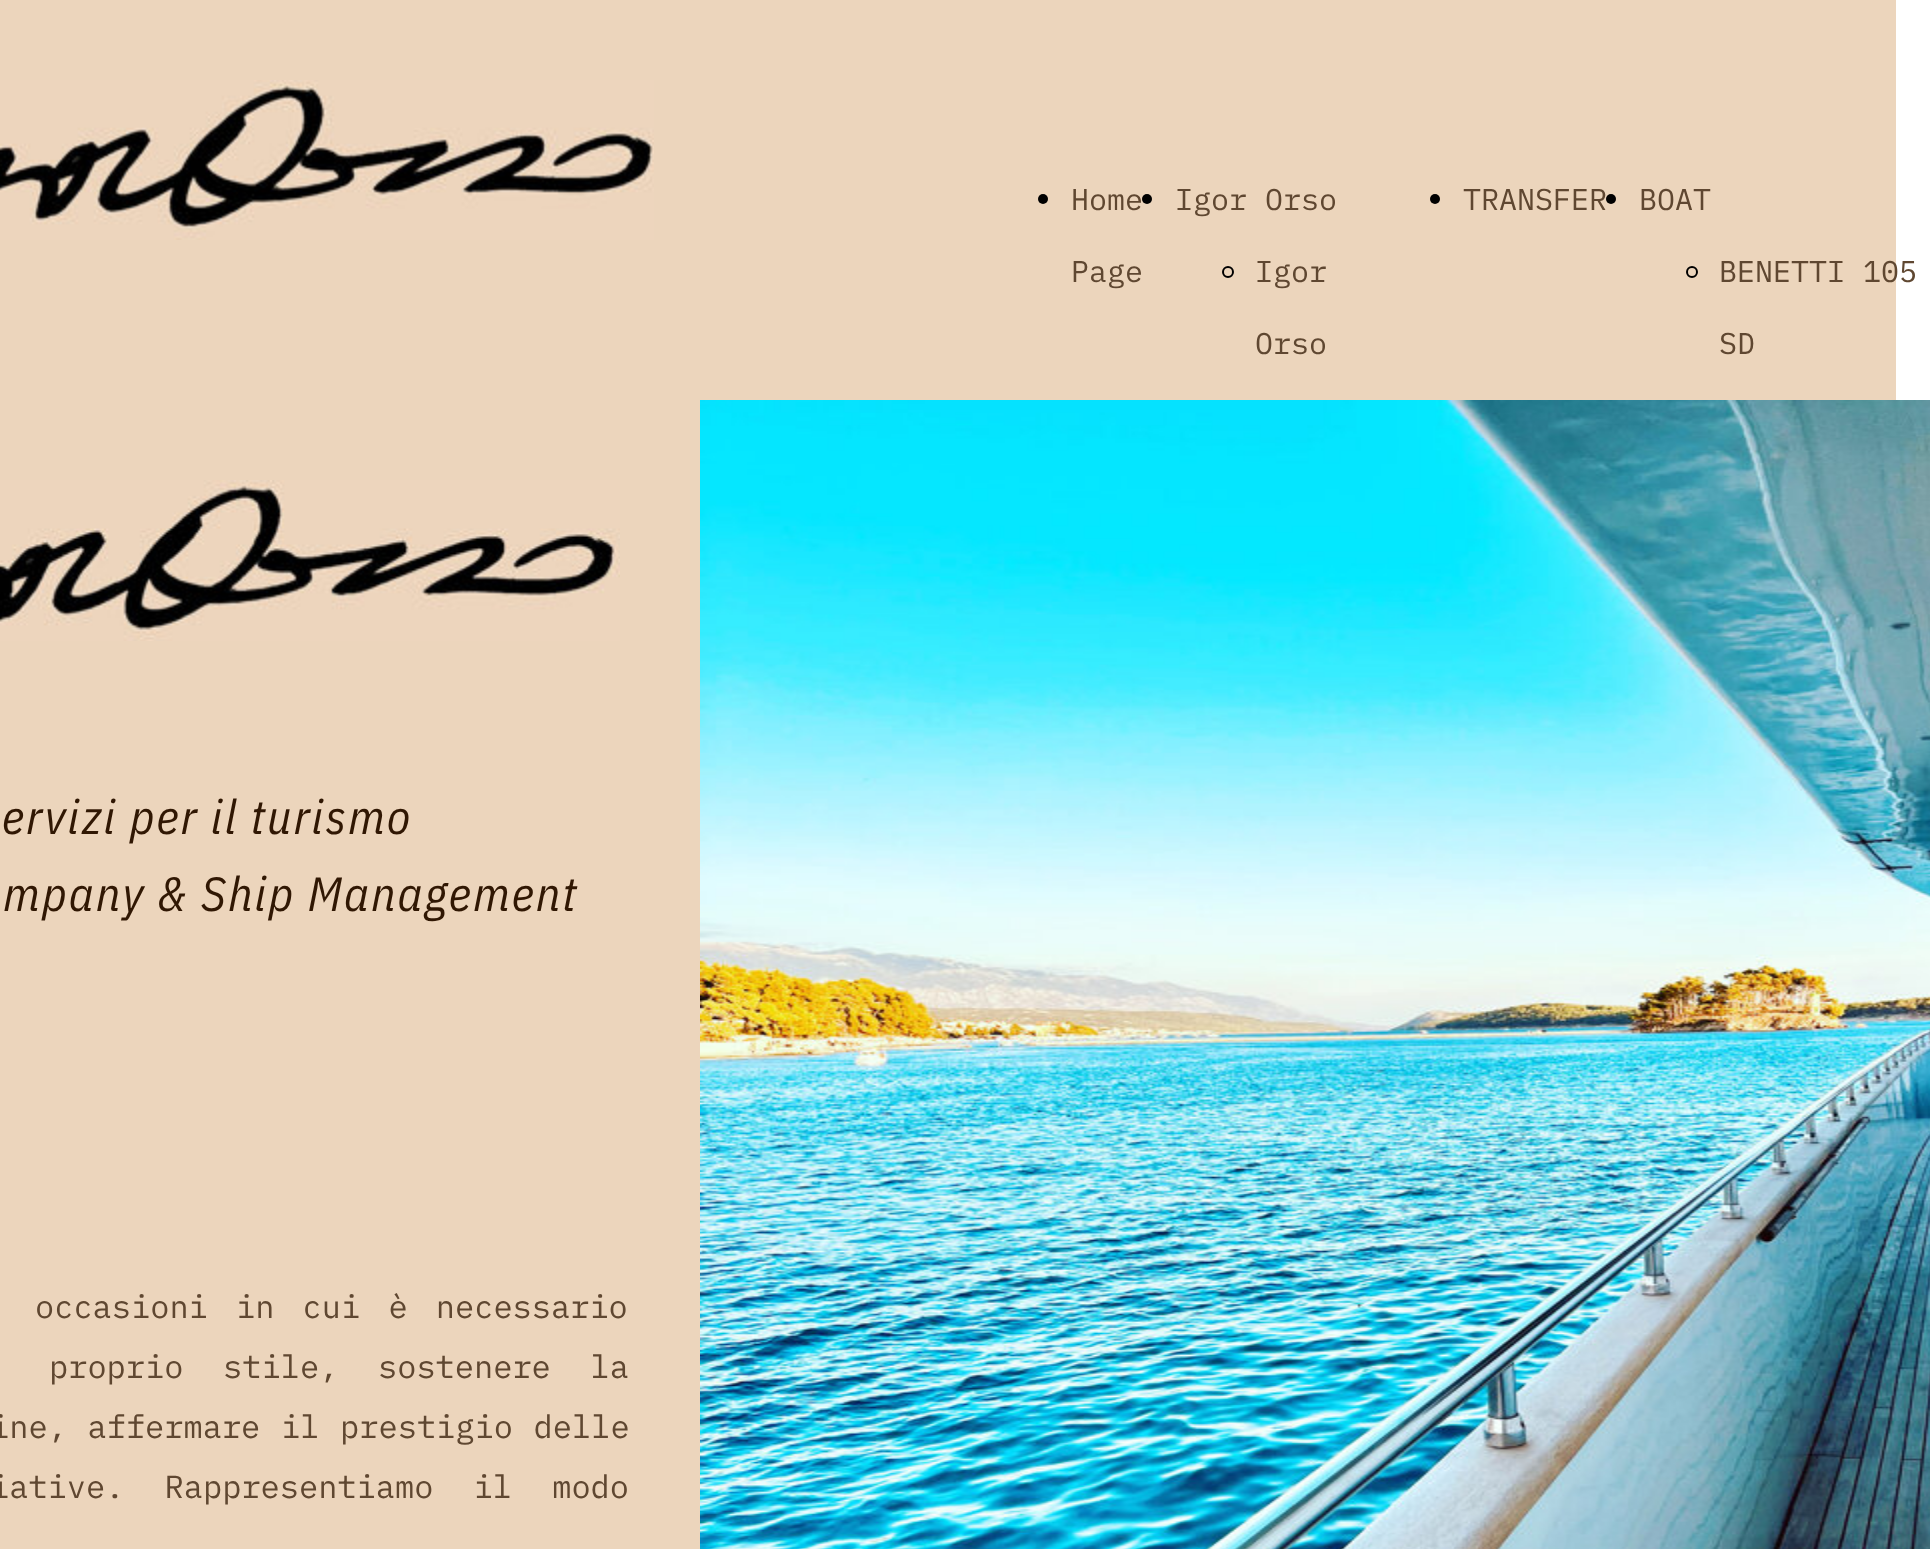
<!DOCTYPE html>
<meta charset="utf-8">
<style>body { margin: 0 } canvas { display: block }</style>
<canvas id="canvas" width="1930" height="1549"></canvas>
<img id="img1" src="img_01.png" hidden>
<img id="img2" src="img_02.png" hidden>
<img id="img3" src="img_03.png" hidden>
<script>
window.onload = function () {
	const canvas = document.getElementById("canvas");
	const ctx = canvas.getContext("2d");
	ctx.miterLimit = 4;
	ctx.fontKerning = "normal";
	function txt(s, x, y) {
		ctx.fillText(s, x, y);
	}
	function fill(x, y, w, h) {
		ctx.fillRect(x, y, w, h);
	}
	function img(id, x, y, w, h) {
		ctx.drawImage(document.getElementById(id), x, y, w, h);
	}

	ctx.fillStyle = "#FFFFFF";
	fill(0, 0, 1930, 1549);
	ctx.fillStyle = "#ECD5BC";
	fill(0, 0, 1896, 400);
	img("img1", 0, 80, 654, 160);
	ctx.fillStyle = "#000000";
	ctx.beginPath();
	ctx.arc(1043, 199, 5, 0, Math.PI * 2);
	ctx.fill();
	ctx.beginPath();
	ctx.arc(1147, 199, 5, 0, Math.PI * 2);
	ctx.fill();
	ctx.beginPath();
	ctx.arc(1228, 272, 5, 0, Math.PI * 2);
	ctx.strokeStyle = "#000000";
	ctx.lineWidth = 2;
	ctx.stroke();
	ctx.beginPath();
	ctx.arc(1435, 199, 5, 0, Math.PI * 2);
	ctx.fill();
	ctx.beginPath();
	ctx.arc(1611, 199, 5, 0, Math.PI * 2);
	ctx.fill();
	ctx.beginPath();
	ctx.arc(1692, 272, 5, 0, Math.PI * 2);
	ctx.stroke();
	ctx.fillStyle = "#ECD5BC";
	fill(0, 400, 700, 1149);
	img("img2", 700, 400, 1230, 1149);
	img("img3", 0, 480, 620, 161);
	ctx.font = "30px IBM Plex Mono";
	ctx.fillStyle = "#5F4731";
	txt("Home", 1071, 210);
	txt("Page", 1071, 282);
	txt("Igor Orso", 1175, 210);
	txt("Igor", 1255, 282);
	txt("Orso", 1255, 354);
	txt("TRANSFER", 1463, 210);
	txt("BOAT", 1639, 210);
	txt("BENETTI 105", 1719, 282);
	txt("SD", 1719, 354);
	ctx.letterSpacing = "2px";
	ctx.font = "italic 48px IBM Plex Sans Condensed";
	ctx.fillStyle = "#301703";
	txt("ervizi per il turismo", 2, 834);
	txt("mpany & Ship Management", 3, 911);
	ctx.letterSpacing = "0px";
	ctx.wordSpacing = "9px";
	ctx.font = "32px IBM Plex Mono";
	ctx.fillStyle = "#5F4731";
	txt("occasioni in cui è necessario", 35, 1318);
	ctx.wordSpacing = "20.5px";
	txt("proprio stile, sostenere la", 49, 1378);
	ctx.wordSpacing = "1.5px";
	txt("ine, affermare il prestigio delle", -10, 1438);
	ctx.wordSpacing = "21px";
	txt("iative. Rappresentiamo il modo", -10, 1498);
};
</script>
